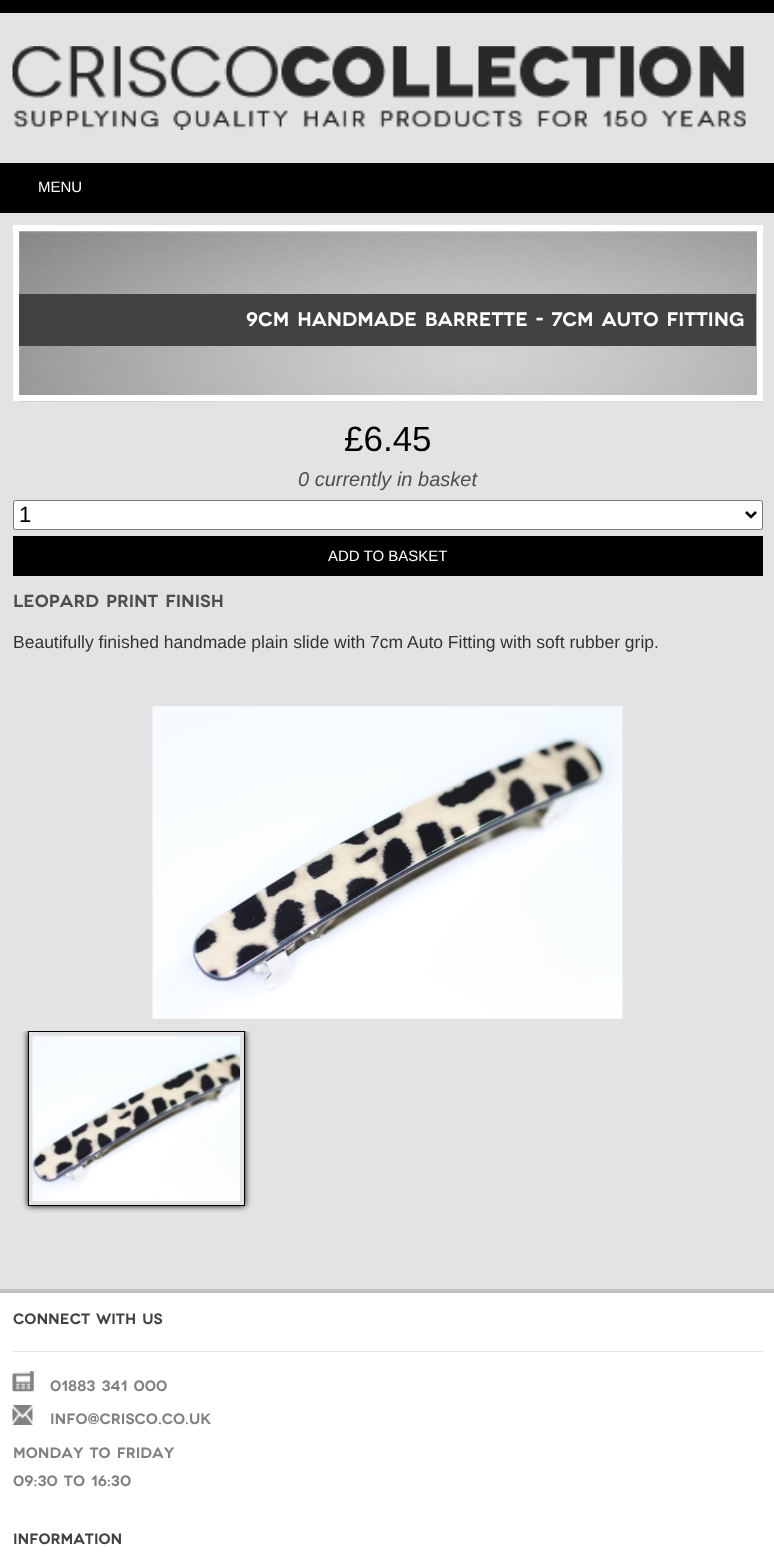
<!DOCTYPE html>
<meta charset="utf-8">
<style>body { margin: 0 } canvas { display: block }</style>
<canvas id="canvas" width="774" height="1559"></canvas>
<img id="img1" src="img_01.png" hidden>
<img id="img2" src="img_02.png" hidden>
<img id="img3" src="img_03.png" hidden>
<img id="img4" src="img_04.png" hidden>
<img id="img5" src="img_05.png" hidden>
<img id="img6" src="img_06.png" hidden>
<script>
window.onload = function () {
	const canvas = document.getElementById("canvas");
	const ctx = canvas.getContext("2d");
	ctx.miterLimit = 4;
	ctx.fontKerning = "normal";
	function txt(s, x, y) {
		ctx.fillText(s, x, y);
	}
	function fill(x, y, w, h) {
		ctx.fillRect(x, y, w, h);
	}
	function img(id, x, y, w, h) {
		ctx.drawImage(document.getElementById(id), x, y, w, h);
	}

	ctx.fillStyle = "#E4E3E3";
	fill(0, 0, 774, 1559);
	ctx.fillStyle = "#000000";
	fill(0, 0, 774, 13);
	img("img1", 12, 46, 734, 84);
	fill(0, 163, 774, 50);
	img("img2", 18, 231, 745, 171);
	ctx.strokeStyle = "#FFFFFF";
	ctx.lineWidth = 6;
	ctx.strokeRect(16, 228, 744, 170);
	ctx.fillStyle = "#424243";
	fill(19, 294, 737, 52);
	ctx.fillStyle = "#FFFFFF";
	ctx.beginPath();
	ctx.roundRect(13.5, 500.5, 749, 29, 2);
	ctx.fill();
	ctx.strokeStyle = "#767676";
	ctx.lineWidth = 1;
	ctx.stroke();
	ctx.beginPath();
	ctx.moveTo(746, 512);
	ctx.lineTo(751, 517);
	ctx.lineTo(756, 512);
	ctx.strokeStyle = "#000000";
	ctx.lineWidth = 2.5;
	ctx.stroke();
	ctx.fillStyle = "#000000";
	fill(13, 536, 750, 40);
	img("img3", 152, 706, 471, 313);
	ctx.save();
	ctx.beginPath();
	ctx.rect(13, 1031, 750, 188);
	ctx.clip();
	ctx.beginPath();
	ctx.moveTo(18, 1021);
	ctx.lineTo(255, 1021);
	ctx.lineTo(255, 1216);
	ctx.lineTo(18, 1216);
	ctx.closePath();
	ctx.moveTo(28, 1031);
	ctx.lineTo(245, 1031);
	ctx.lineTo(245, 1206);
	ctx.lineTo(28, 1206);
	ctx.closePath();
	ctx.clip("evenodd");
	ctx.filter = "blur(3px)";
	ctx.beginPath();
	ctx.rect(28, 1031, 217, 175);
	ctx.fill();
	ctx.filter = "none";
	ctx.restore();
	ctx.lineWidth = 1;
	ctx.strokeRect(28.5, 1031.5, 216, 174);
	img("img4", 32, 1036, 208, 166);
	ctx.fillStyle = "#FFFFFF";
	fill(0, 1293, 774, 266);
	ctx.fillStyle = "#C0C0C0";
	fill(0, 1289, 774, 4);
	ctx.fillStyle = "#E4E3E3";
	fill(13, 1351, 750, 1);
	img("img5", 12, 1371, 22, 21);
	img("img6", 12, 1405, 21, 20);
	ctx.font = "15px Liberation Sans";
	ctx.fillStyle = "#FFFFFF";
	txt("MENU", 38, 192);
	ctx.font = "600 19.5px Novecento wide";
	txt("9cm Handmade Barrette - 7cm Auto Fitting", 246, 326);
	ctx.font = "35px Liberation Sans";
	ctx.fillStyle = "#000000";
	txt("£6.45", 344, 451);
	ctx.font = "italic 20px Liberation Sans";
	ctx.fillStyle = "#4E4E4E";
	txt("0 currently in basket", 298, 486);
	ctx.font = "22px Liberation Sans";
	ctx.fillStyle = "#000000";
	txt("1", 19, 522);
	ctx.font = "15px Liberation Sans";
	ctx.fillStyle = "#FFFFFF";
	txt("ADD TO BASKET", 328, 561);
	ctx.font = "600 17.5px Novecento wide";
	ctx.fillStyle = "#4E4E4E";
	txt("Leopard Print Finish", 13, 607);
	ctx.font = "17.5px Liberation Sans";
	ctx.fillStyle = "#333333";
	txt("Beautifully finished handmade plain slide with 7cm Auto Fitting with soft rubber grip.", 13, 648);
	ctx.font = "600 15px Novecento wide";
	ctx.fillStyle = "#424243";
	txt("CONNECT WITH US", 13, 1324);
	ctx.fillStyle = "#818181";
	txt("01883 341 000", 50, 1391);
	txt("INFO@CRISCO.CO.UK", 50, 1424);
	txt("MONDAY TO FRIDAY", 13, 1458);
	txt("09:30 TO 16:30", 13, 1486);
	ctx.fillStyle = "#424243";
	txt("INFORMATION", 13, 1544);
};
</script>
